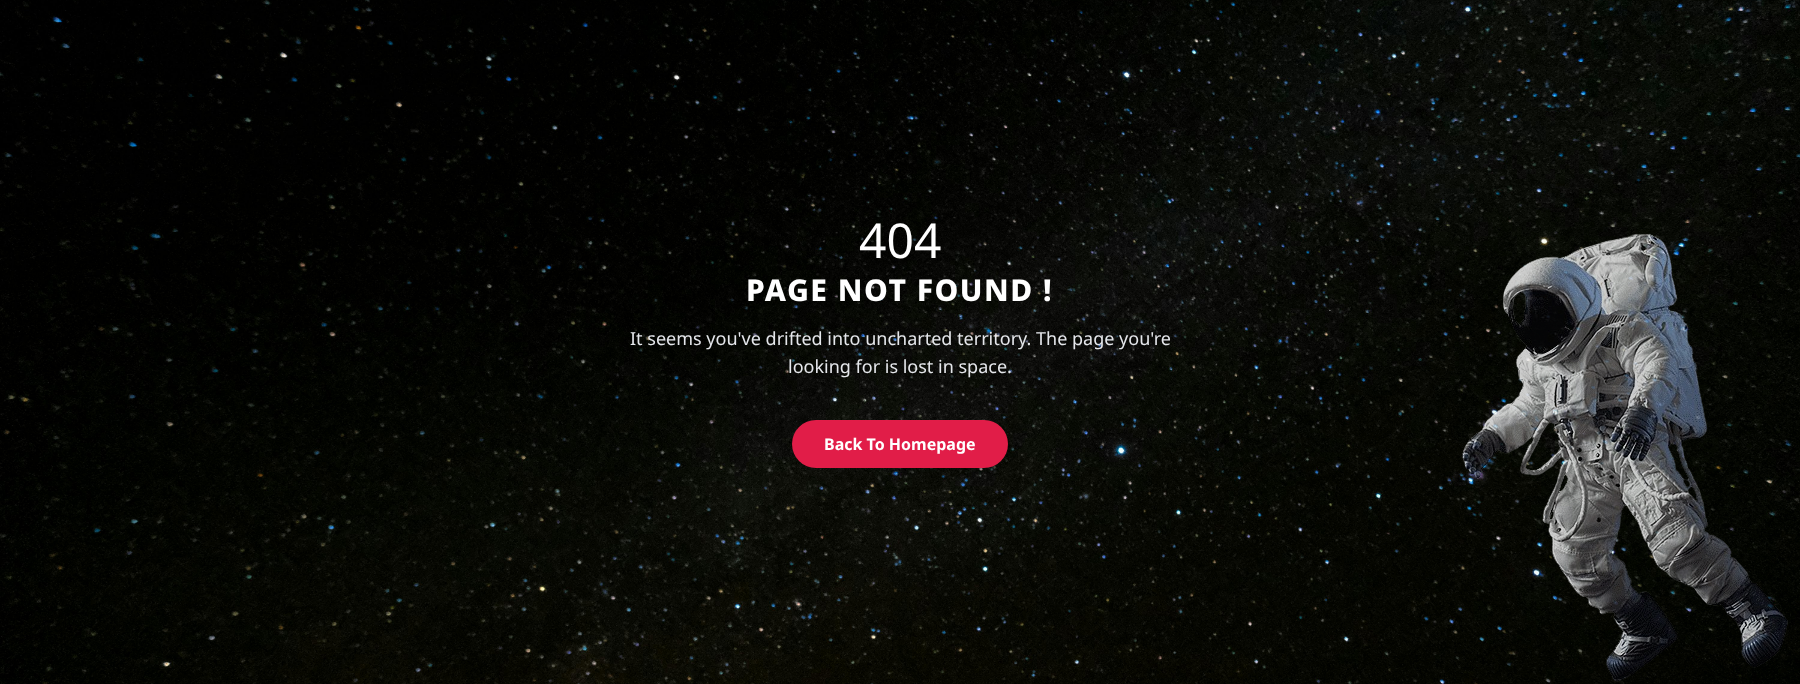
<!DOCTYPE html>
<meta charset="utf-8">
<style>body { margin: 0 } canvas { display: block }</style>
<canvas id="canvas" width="1800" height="684"></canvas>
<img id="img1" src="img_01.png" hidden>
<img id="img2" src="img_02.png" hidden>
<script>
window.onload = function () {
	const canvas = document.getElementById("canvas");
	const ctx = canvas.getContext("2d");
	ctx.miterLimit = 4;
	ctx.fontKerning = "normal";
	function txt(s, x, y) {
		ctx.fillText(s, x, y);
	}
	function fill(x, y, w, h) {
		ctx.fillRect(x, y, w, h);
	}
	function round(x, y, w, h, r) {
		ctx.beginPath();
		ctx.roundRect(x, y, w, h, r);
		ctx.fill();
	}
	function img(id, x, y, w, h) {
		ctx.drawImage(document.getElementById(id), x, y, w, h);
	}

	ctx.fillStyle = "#FFFFFF";
	fill(0, 0, 1800, 684);
	img("img1", 0, 0, 1800, 684);
	ctx.fillStyle = "rgba(0, 0, 0, 0.1)";
	ctx.filter = "blur(5px)";
	ctx.beginPath();
	ctx.roundRect(798, 434, 204, 36, 18);
	ctx.fill();
	ctx.filter = "none";
	ctx.filter = "blur(12.5px)";
	ctx.beginPath();
	ctx.roundRect(797, 445, 206, 38, 19);
	ctx.fill();
	ctx.filter = "none";
	ctx.fillStyle = "#E11D48";
	round(792, 420, 216, 48, 24);
	img("img2", 1462, 234, 326, 448);
	ctx.font = "48px Noto Sans";
	ctx.fillStyle = "#FFFFFF";
	txt("404", 859, 258);
	ctx.letterSpacing = "1.5px";
	ctx.font = "800 30px Noto Sans";
	txt("PAGE NOT FOUND !", 746, 301);
	ctx.letterSpacing = "0px";
	ctx.font = "18px Noto Sans";
	ctx.fillStyle = "#E5E7EB";
	txt("It seems you've drifted into uncharted territory. The page you're", 630, 345);
	txt("looking for is lost in space.", 788, 373);
	ctx.font = "bold 16px Noto Sans";
	ctx.fillStyle = "#FFFFFF";
	txt("Back To Homepage", 824, 450);
};
</script>
